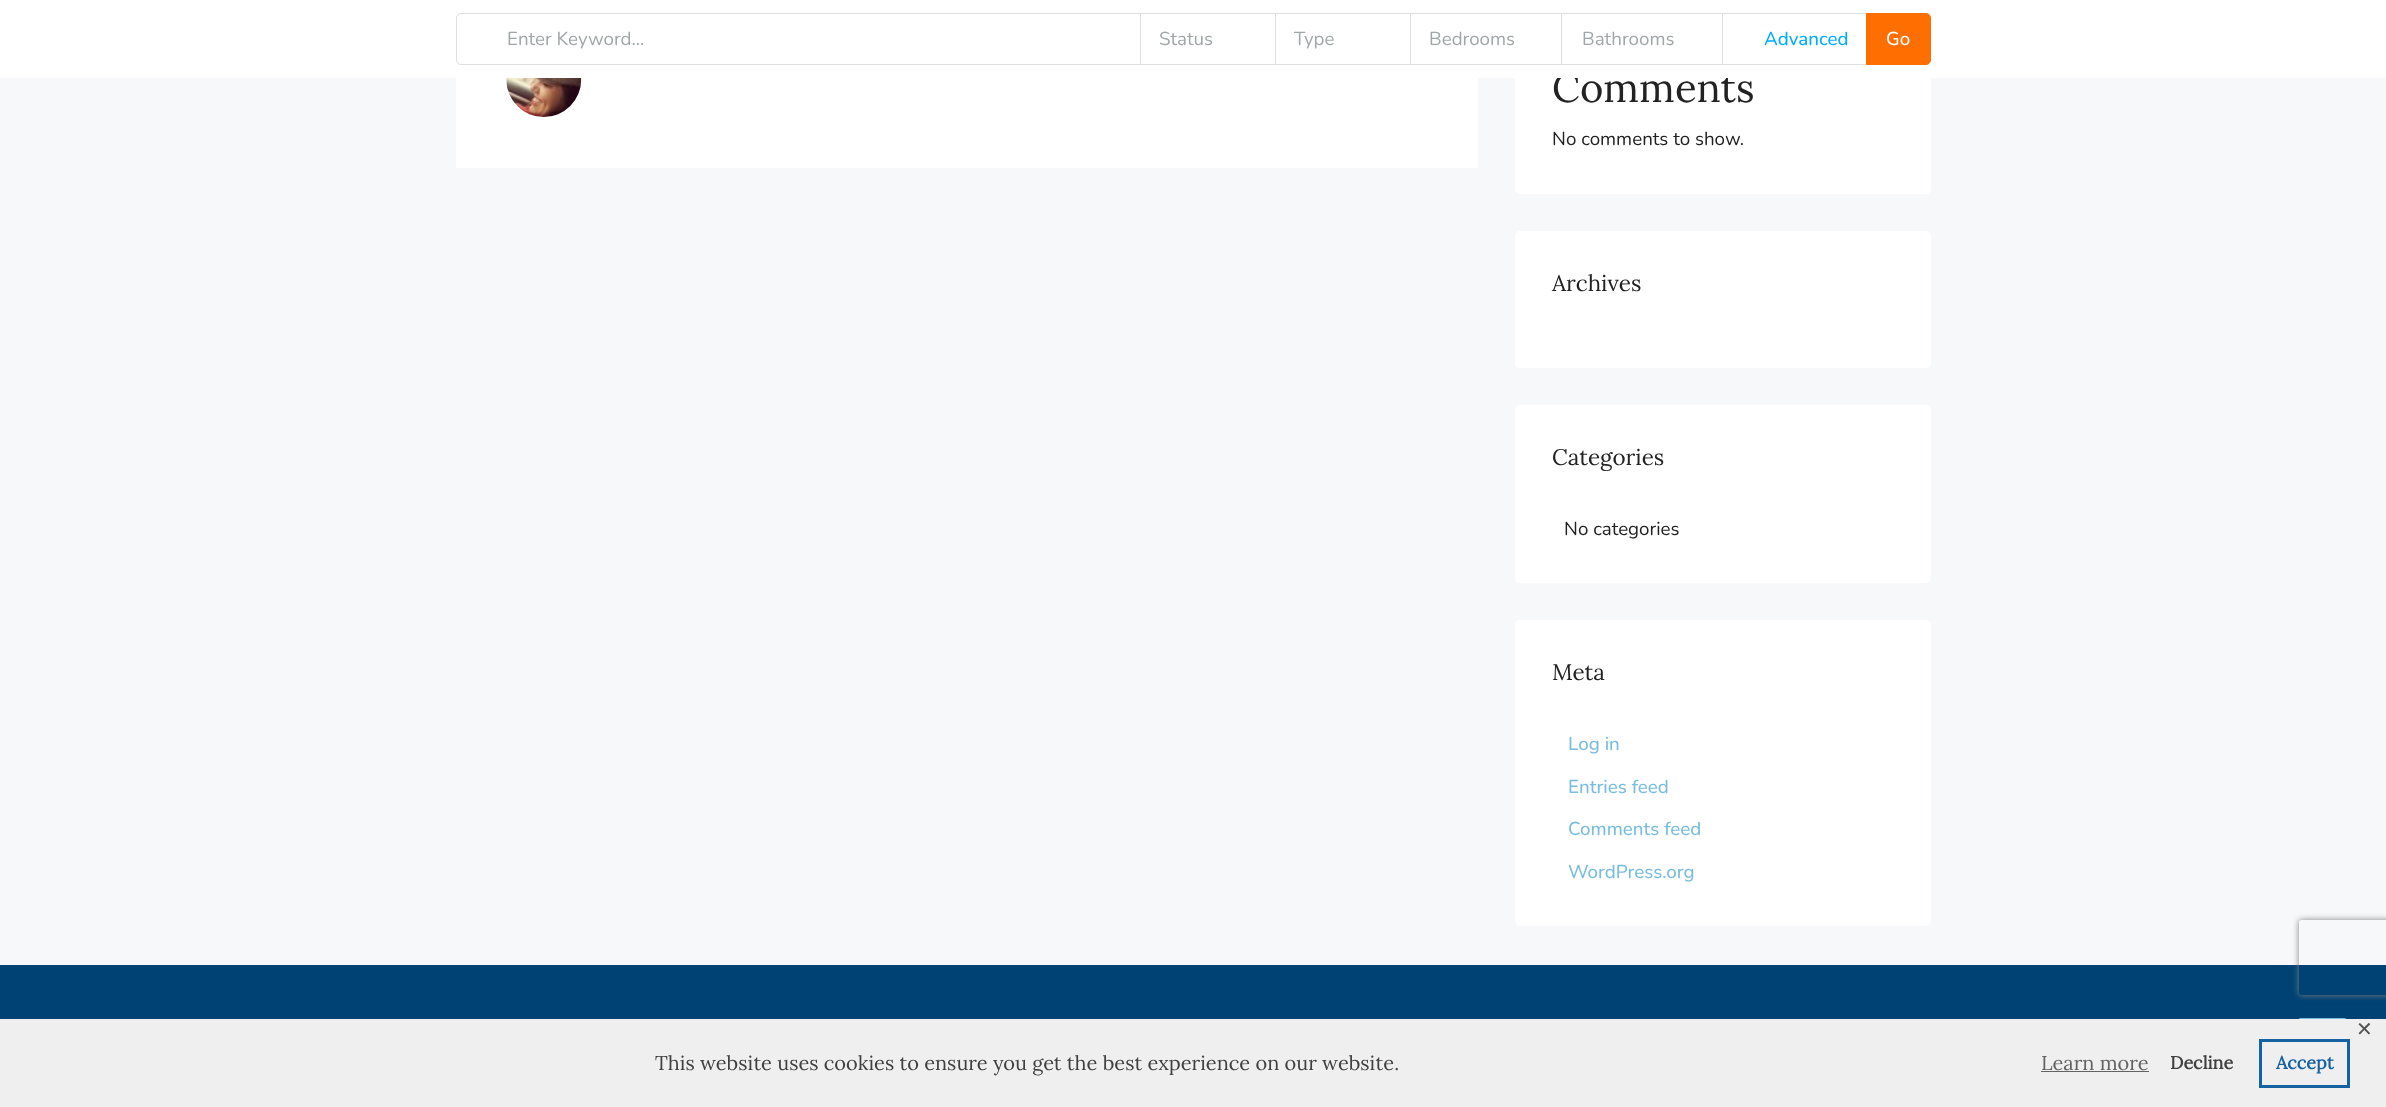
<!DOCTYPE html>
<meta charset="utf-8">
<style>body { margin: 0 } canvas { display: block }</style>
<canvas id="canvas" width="2386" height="1107"></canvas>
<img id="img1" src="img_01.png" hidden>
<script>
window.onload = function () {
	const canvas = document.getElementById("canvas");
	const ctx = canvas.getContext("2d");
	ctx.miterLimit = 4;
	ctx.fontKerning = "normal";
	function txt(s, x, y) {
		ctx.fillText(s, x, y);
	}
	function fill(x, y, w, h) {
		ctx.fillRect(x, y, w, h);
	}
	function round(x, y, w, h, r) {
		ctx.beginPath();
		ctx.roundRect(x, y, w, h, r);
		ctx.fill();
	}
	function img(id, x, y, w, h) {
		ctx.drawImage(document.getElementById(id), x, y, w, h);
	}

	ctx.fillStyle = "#F7F8F9";
	fill(0, 0, 2386, 1107);
	ctx.fillStyle = "#FFFFFF";
	fill(456, 78, 1022, 90);
	img("img1", 506, 78, 76, 39);
	round(1515, -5, 416, 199, 5);
	round(1515, 231, 416, 137, 5);
	round(1515, 405, 416, 178, 5);
	round(1515, 620, 416, 306, 5);
	ctx.fillStyle = "#004274";
	fill(0, 965, 2386, 54);
	ctx.save();
	ctx.beginPath();
	ctx.moveTo(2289, 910);
	ctx.lineTo(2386, 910);
	ctx.lineTo(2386, 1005);
	ctx.lineTo(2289, 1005);
	ctx.closePath();
	ctx.moveTo(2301.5, 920);
	ctx.lineTo(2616.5, 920);
	ctx.bezierCurveTo(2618, 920, 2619, 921, 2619, 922.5);
	ctx.lineTo(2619, 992.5);
	ctx.bezierCurveTo(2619, 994, 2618, 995, 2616.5, 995);
	ctx.lineTo(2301.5, 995);
	ctx.bezierCurveTo(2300, 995, 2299, 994, 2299, 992.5);
	ctx.lineTo(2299, 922.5);
	ctx.bezierCurveTo(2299, 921, 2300, 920, 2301.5, 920);
	ctx.closePath();
	ctx.clip("evenodd");
	ctx.fillStyle = "#808080";
	ctx.filter = "blur(3px)";
	ctx.beginPath();
	ctx.roundRect(2299, 920, 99, 75, 2.5);
	ctx.fill();
	ctx.filter = "none";
	ctx.restore();
	ctx.beginPath();
	ctx.roundRect(2296.5, 1018.5, 52, 51, 4.5);
	ctx.strokeStyle = "#7ABEDF";
	ctx.stroke();
	ctx.fillStyle = "#EFEFEF";
	fill(0, 1019, 2386, 88);
	ctx.fillStyle = "#636363";
	fill(2041, 1071, 108, 1);
	ctx.strokeStyle = "#1562A2";
	ctx.lineWidth = 3;
	ctx.strokeRect(2260.5, 1040.5, 88, 46);
	ctx.font = "40px Lora";
	ctx.fillStyle = "#222222";
	txt("Comments", 1552, 102);
	ctx.fillStyle = "#FFFFFF";
	fill(0, 0, 2386, 78);
	ctx.beginPath();
	ctx.roundRect(456.5, 13.5, 686, 51, [4.5, 0, 0, 4.5]);
	ctx.strokeStyle = "#DCE0E0";
	ctx.lineWidth = 1;
	ctx.stroke();
	fill(1142, 14, 1, 50);
	ctx.strokeRect(1140.5, 13.5, 137, 51);
	fill(1277, 14, 1, 50);
	ctx.strokeRect(1275.5, 13.5, 137, 51);
	fill(1412, 14, 1, 50);
	ctx.strokeRect(1410.5, 13.5, 153, 51);
	ctx.strokeRect(1720.5, 13.5, 148, 51);
	fill(1563, 14, 158, 50);
	ctx.strokeRect(1561.5, 13.5, 161, 51);
	ctx.font = "18.75px Nunito";
	ctx.fillStyle = "#A1A7A8";
	txt("Bathrooms", 1582, 45);
	txt("Bedrooms", 1429, 45);
	txt("Type", 1294, 45);
	txt("Status", 1159, 45);
	txt("Enter Keyword...", 507, 45);
	ctx.fillStyle = "#FF6E00";
	ctx.beginPath();
	ctx.roundRect(1866.5, 13.5, 64, 51, [0, 4.5, 4.5, 0]);
	ctx.fill();
	ctx.strokeStyle = "#FF6E00";
	ctx.stroke();
	ctx.font = "500 18.75px Nunito";
	ctx.fillStyle = "#FFFFFF";
	txt("Go", 1886, 45);
	ctx.fillStyle = "#00AEFF";
	txt("Advanced", 1764, 45);
	ctx.font = "18.75px Nunito";
	ctx.fillStyle = "#222222";
	txt("No comments to show.", 1552, 145);
	ctx.font = "22.5px Lora";
	txt("Archives", 1552, 291);
	txt("Categories", 1552, 465);
	ctx.font = "18.75px Nunito";
	txt("No categories", 1564, 535);
	ctx.font = "22.5px Lora";
	txt("Meta", 1552, 680);
	ctx.font = "500 18.75px Nunito";
	ctx.fillStyle = "#7ABEDF";
	txt("Log in", 1568, 750);
	txt("Entries feed", 1568, 793);
	txt("Comments feed", 1568, 835);
	txt("WordPress.org", 1568, 878);
	ctx.font = "20px DejaVu Sans";
	ctx.fillStyle = "#525252";
	txt("✕", 2356, 1036);
	ctx.font = "20px Lora";
	ctx.fillStyle = "#404040";
	txt("This website uses cookies to ensure you get the best experience on our website.", 655, 1070);
	ctx.fillStyle = "#636363";
	txt("Learn more", 2041, 1070);
	ctx.font = "bold 18px Lora";
	ctx.fillStyle = "#404040";
	txt("Decline", 2170, 1069);
	ctx.fillStyle = "#1562A2";
	txt("Accept", 2276, 1069);
};
</script>
